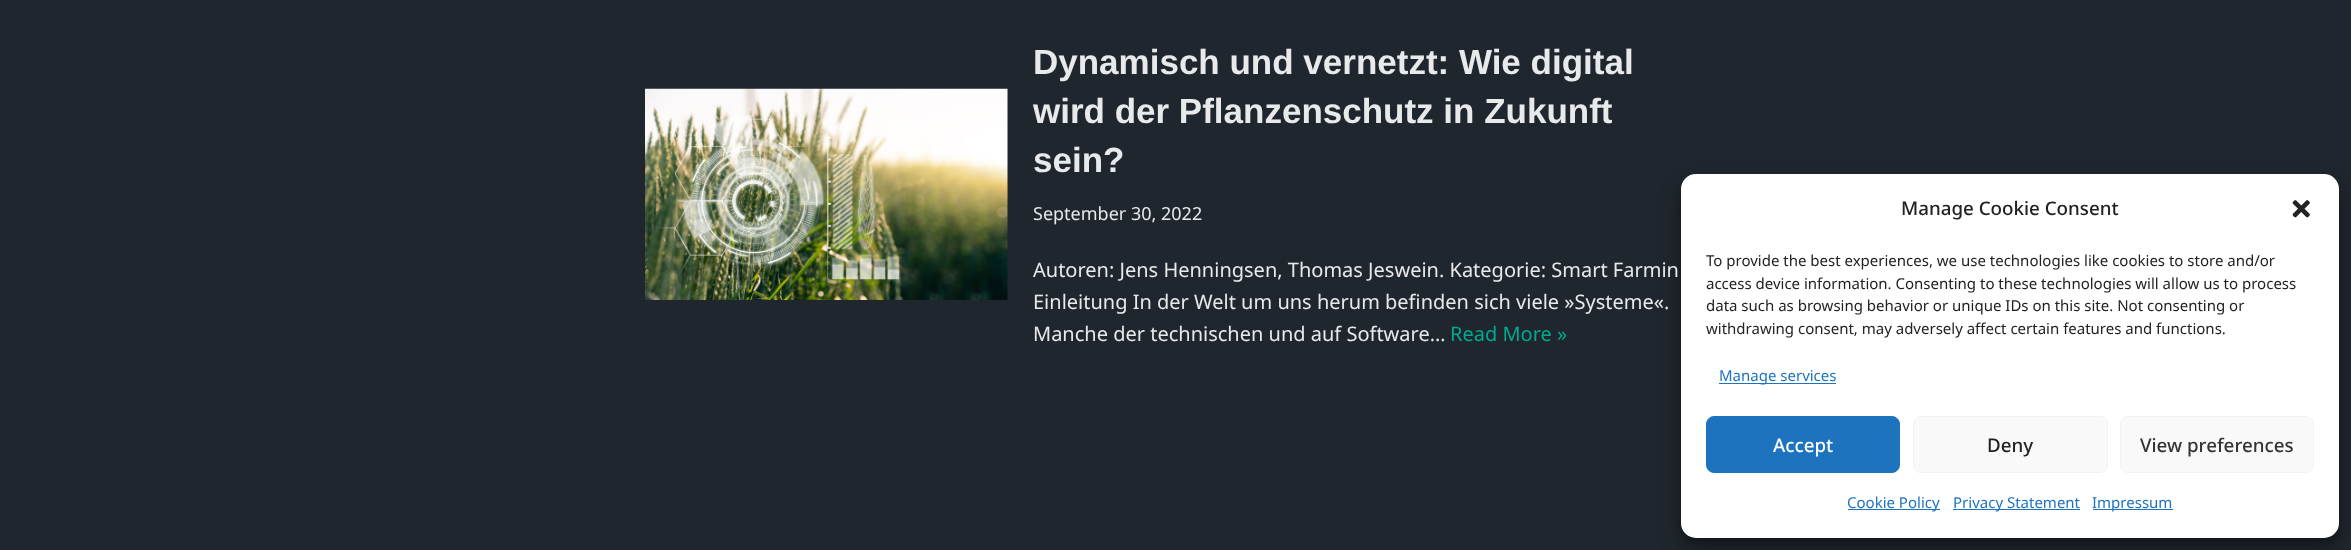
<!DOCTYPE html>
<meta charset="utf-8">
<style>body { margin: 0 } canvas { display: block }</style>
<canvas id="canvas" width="2351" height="550"></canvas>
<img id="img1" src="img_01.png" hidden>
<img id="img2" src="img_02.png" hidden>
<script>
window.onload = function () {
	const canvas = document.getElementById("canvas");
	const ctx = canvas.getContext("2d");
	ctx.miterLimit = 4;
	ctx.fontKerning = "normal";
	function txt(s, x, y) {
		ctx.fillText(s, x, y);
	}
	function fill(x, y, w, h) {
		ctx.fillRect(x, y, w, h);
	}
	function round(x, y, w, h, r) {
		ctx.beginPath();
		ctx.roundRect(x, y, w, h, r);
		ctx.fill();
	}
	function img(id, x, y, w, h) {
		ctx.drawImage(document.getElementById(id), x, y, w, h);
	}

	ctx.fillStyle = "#20262D";
	fill(0, 0, 2351, 550);
	img("img1", 645, 88, 363, 212);
	ctx.fillStyle = "rgba(0, 0, 0, 0.23)";
	ctx.filter = "blur(4px)";
	ctx.beginPath();
	ctx.roundRect(1681, 181, 658, 364, 15);
	ctx.fill();
	ctx.filter = "none";
	ctx.fillStyle = "rgba(0, 0, 0, 0.19)";
	ctx.filter = "blur(12.5px)";
	ctx.beginPath();
	ctx.roundRect(1681, 186, 658, 364, 15);
	ctx.fill();
	ctx.filter = "none";
	ctx.fillStyle = "#FFFFFF";
	round(1681, 174, 658, 364, 15);
	img("img2", 2292, 200, 18, 18);
	ctx.fillStyle = "#1E73BE";
	fill(1719, 383, 117, 1);
	ctx.beginPath();
	ctx.roundRect(1706.5, 416.5, 193, 56, 7.5);
	ctx.fill();
	ctx.strokeStyle = "#1E73BE";
	ctx.stroke();
	ctx.fillStyle = "#F9F9F9";
	ctx.beginPath();
	ctx.roundRect(1913.5, 416.5, 194, 56, 7.5);
	ctx.fill();
	ctx.strokeStyle = "#F2F2F2";
	ctx.stroke();
	ctx.beginPath();
	ctx.roundRect(2120.5, 416.5, 193, 56, 7.5);
	ctx.fill();
	ctx.stroke();
	ctx.fillStyle = "#1E73BE";
	fill(1848, 509, 92, 1);
	fill(1953, 509, 127, 1);
	fill(2093, 509, 80, 1);
	ctx.font = "bold 35px Liberation Sans";
	ctx.fillStyle = "#E8E9EB";
	txt("Dynamisch und vernetzt: Wie digital", 1033, 74);
	txt("wird der Pflanzenschutz in Zukunft", 1033, 123);
	txt("sein?", 1033, 172);
	ctx.font = "18px Noto Sans";
	txt("September 30, 2022", 1033, 220);
	ctx.font = "20px Noto Sans";
	txt("Autoren: Jens Henningsen, Thomas Jeswein. Kategorie: Smart Farmin", 1033, 277);
	txt("Einleitung In der Welt um uns herum befinden sich viele »Systeme«.", 1033, 309);
	txt("Manche der technischen und auf Software…", 1033, 341);
	ctx.fillStyle = "#00A98F";
	txt("Read More »", 1450, 341);
	ctx.font = "500 18.75px Noto Sans";
	ctx.fillStyle = "#222222";
	txt("Manage Cookie Consent", 1901, 215);
	ctx.font = "15px Noto Sans";
	txt("To provide the best experiences, we use technologies like cookies to store and/or", 1706, 266);
	txt("access device information. Consenting to these technologies will allow us to process", 1706, 289);
	txt("data such as browsing behavior or unique IDs on this site. Not consenting or", 1706, 311);
	txt("withdrawing consent, may adversely affect certain features and functions.", 1706, 334);
	ctx.fillStyle = "#1E73BE";
	txt("Manage services", 1719, 381);
	ctx.font = "500 18.75px Noto Sans";
	ctx.fillStyle = "#FFFFFF";
	txt("Accept", 1773, 452);
	ctx.fillStyle = "#222222";
	txt("Deny", 1987, 452);
	ctx.fillStyle = "#333333";
	txt("View preferences", 2140, 452);
	ctx.font = "15px Noto Sans";
	ctx.fillStyle = "#1E73BE";
	txt("Cookie Policy", 1847, 508);
	txt("Privacy Statement", 1953, 508);
	txt("Impressum", 2092, 508);
};
</script>
